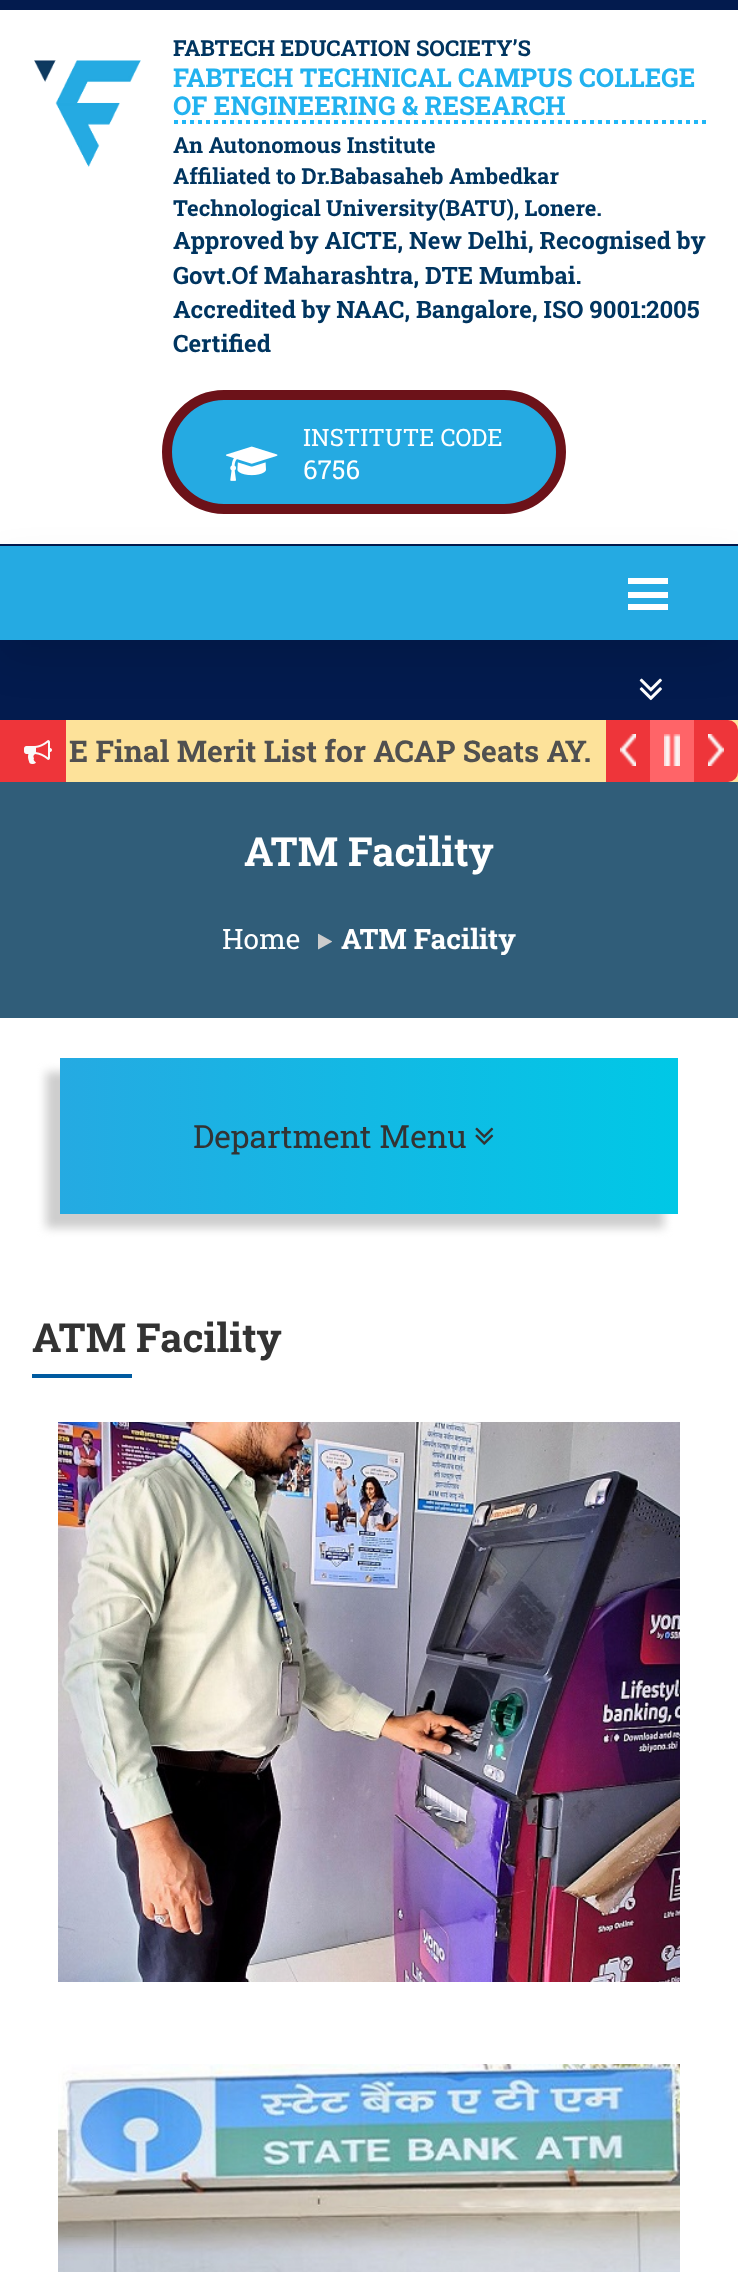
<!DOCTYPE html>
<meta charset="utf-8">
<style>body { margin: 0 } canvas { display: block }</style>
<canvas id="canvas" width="738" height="2272"></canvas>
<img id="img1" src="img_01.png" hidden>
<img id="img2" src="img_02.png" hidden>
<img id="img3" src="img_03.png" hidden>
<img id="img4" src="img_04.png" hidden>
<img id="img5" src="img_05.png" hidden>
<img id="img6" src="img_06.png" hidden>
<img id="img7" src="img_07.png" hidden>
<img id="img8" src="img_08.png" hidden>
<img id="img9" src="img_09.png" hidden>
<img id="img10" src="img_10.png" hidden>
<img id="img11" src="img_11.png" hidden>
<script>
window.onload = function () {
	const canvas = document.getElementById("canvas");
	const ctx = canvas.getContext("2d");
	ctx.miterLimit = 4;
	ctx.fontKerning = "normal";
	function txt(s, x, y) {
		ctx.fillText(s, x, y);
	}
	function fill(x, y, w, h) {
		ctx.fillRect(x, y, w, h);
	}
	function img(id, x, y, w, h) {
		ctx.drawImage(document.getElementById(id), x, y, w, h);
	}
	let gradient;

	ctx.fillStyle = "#FFFFFF";
	fill(0, 0, 738, 2272);
	ctx.fillStyle = "#031B4E";
	fill(0, 0, 738, 10);
	img("img1", 34, 60, 107, 107);
	ctx.beginPath();
	ctx.moveTo(174, 122);
	ctx.lineTo(708, 122);
	ctx.strokeStyle = "#22B7F6";
	ctx.lineWidth = 4;
	ctx.setLineDash([4, 4]);
	ctx.stroke();
	ctx.fillStyle = "#25AAE2";
	ctx.beginPath();
	ctx.roundRect(167, 395, 394, 114, 57);
	ctx.fill();
	ctx.strokeStyle = "#6C1219";
	ctx.lineWidth = 10;
	ctx.setLineDash([]);
	ctx.stroke();
	img("img2", 226, 446, 52, 35);
	ctx.fillStyle = "#031B4E";
	fill(0, 544, 738, 2);
	fill(0, 640, 738, 80);
	img("img3", 639, 678, 23, 23);
	ctx.fillStyle = "#EE353A";
	fill(0, 720, 66, 62);
	ctx.fillStyle = "#FDE29A";
	fill(66, 720, 672, 62);
	ctx.fillStyle = "#EE353A";
	fill(606, 720, 44, 62);
	ctx.fillStyle = "#FF6468";
	fill(650, 720, 44, 62);
	ctx.fillStyle = "#EE353A";
	ctx.beginPath();
	ctx.roundRect(694, 720, 44, 62, [0, 10, 10, 0]);
	ctx.fill();
	ctx.fillStyle = "rgba(0, 0, 0, 0.1)";
	ctx.filter = "blur(20px)";
	ctx.beginPath();
	ctx.rect(0, 566, 738, 94);
	ctx.fill();
	ctx.filter = "none";
	ctx.fillStyle = "#25AAE2";
	fill(0, 546, 738, 94);
	ctx.fillStyle = "#FFFFFF";
	fill(628, 578, 40, 6);
	fill(628, 592, 40, 6);
	fill(628, 604, 40, 6);
	img("img4", 24, 740, 28, 24);
	img("img5", 620, 734, 16, 32);
	img("img6", 664, 734, 16, 32);
	img("img7", 708, 734, 16, 32);
	ctx.fillStyle = "#305D79";
	fill(0, 782, 738, 236);
	img("img8", 318, 933, 14, 17);
	ctx.fillStyle = "#CECECE";
	ctx.filter = "blur(5px)";
	ctx.beginPath();
	ctx.rect(46, 1072, 618, 156);
	ctx.fill();
	ctx.filter = "none";
	gradient = ctx.createLinearGradient(60, 1136, 678, 1136);
	gradient.addColorStop(0, "#25AAE2");
	gradient.addColorStop(1, "#00C8E6");
	ctx.fillStyle = gradient;
	fill(60, 1058, 618, 156);
	img("img9", 475, 1127, 19, 18);
	ctx.fillStyle = "#005BA0";
	fill(32, 1374, 100, 4);
	img("img10", 58, 1422, 622, 560);
	img("img11", 58, 2064, 622, 208);
	ctx.font = "bold 22px Roboto Slab";
	ctx.fillStyle = "#003560";
	txt("FABTECH EDUCATION SOCIETY’S", 173, 56);
	ctx.font = "bold 26px Roboto Slab";
	ctx.fillStyle = "#22B2EF";
	txt("FABTECH TECHNICAL CAMPUS COLLEGE", 173, 87);
	txt("OF ENGINEERING & RESEARCH", 173, 115);
	ctx.font = "bold 22px Roboto Slab";
	ctx.fillStyle = "#003560";
	txt("An Autonomous Institute", 173, 153);
	txt("Affiliated to Dr.Babasaheb Ambedkar", 173, 184);
	txt("Technological University(BATU), Lonere.", 173, 216);
	ctx.font = "bold 24px Roboto Slab";
	txt("Approved by AICTE, New Delhi, Recognised by", 173, 249);
	txt("Govt.Of Maharashtra, DTE Mumbai.", 173, 284);
	txt("Accredited by NAAC, Bangalore, ISO 9001:2005", 173, 318);
	txt("Certified", 173, 352);
	ctx.font = "24px Roboto Slab";
	ctx.fillStyle = "#FFFFFF";
	txt("INSTITUTE CODE", 303, 446);
	ctx.font = "26px Roboto Slab";
	txt("6756", 303, 479);
	ctx.font = "bold 30px Roboto Slab";
	ctx.fillStyle = "#505050";
	txt("E Final Merit List for ACAP Seats AY.", 69, 762);
	ctx.font = "bold 40px Roboto Slab";
	ctx.fillStyle = "#FFFFFF";
	txt("ATM Facility", 244, 866);
	ctx.font = "28px Roboto Slab";
	txt("Home", 222, 949);
	ctx.font = "bold 28px Roboto Slab";
	txt("ATM Facility", 341, 949);
	ctx.font = "32px Roboto Slab";
	ctx.fillStyle = "#333333";
	txt("Department Menu", 193, 1148);
	ctx.font = "bold 40px Roboto Slab";
	txt("ATM Facility", 32, 1352);
};
</script>
